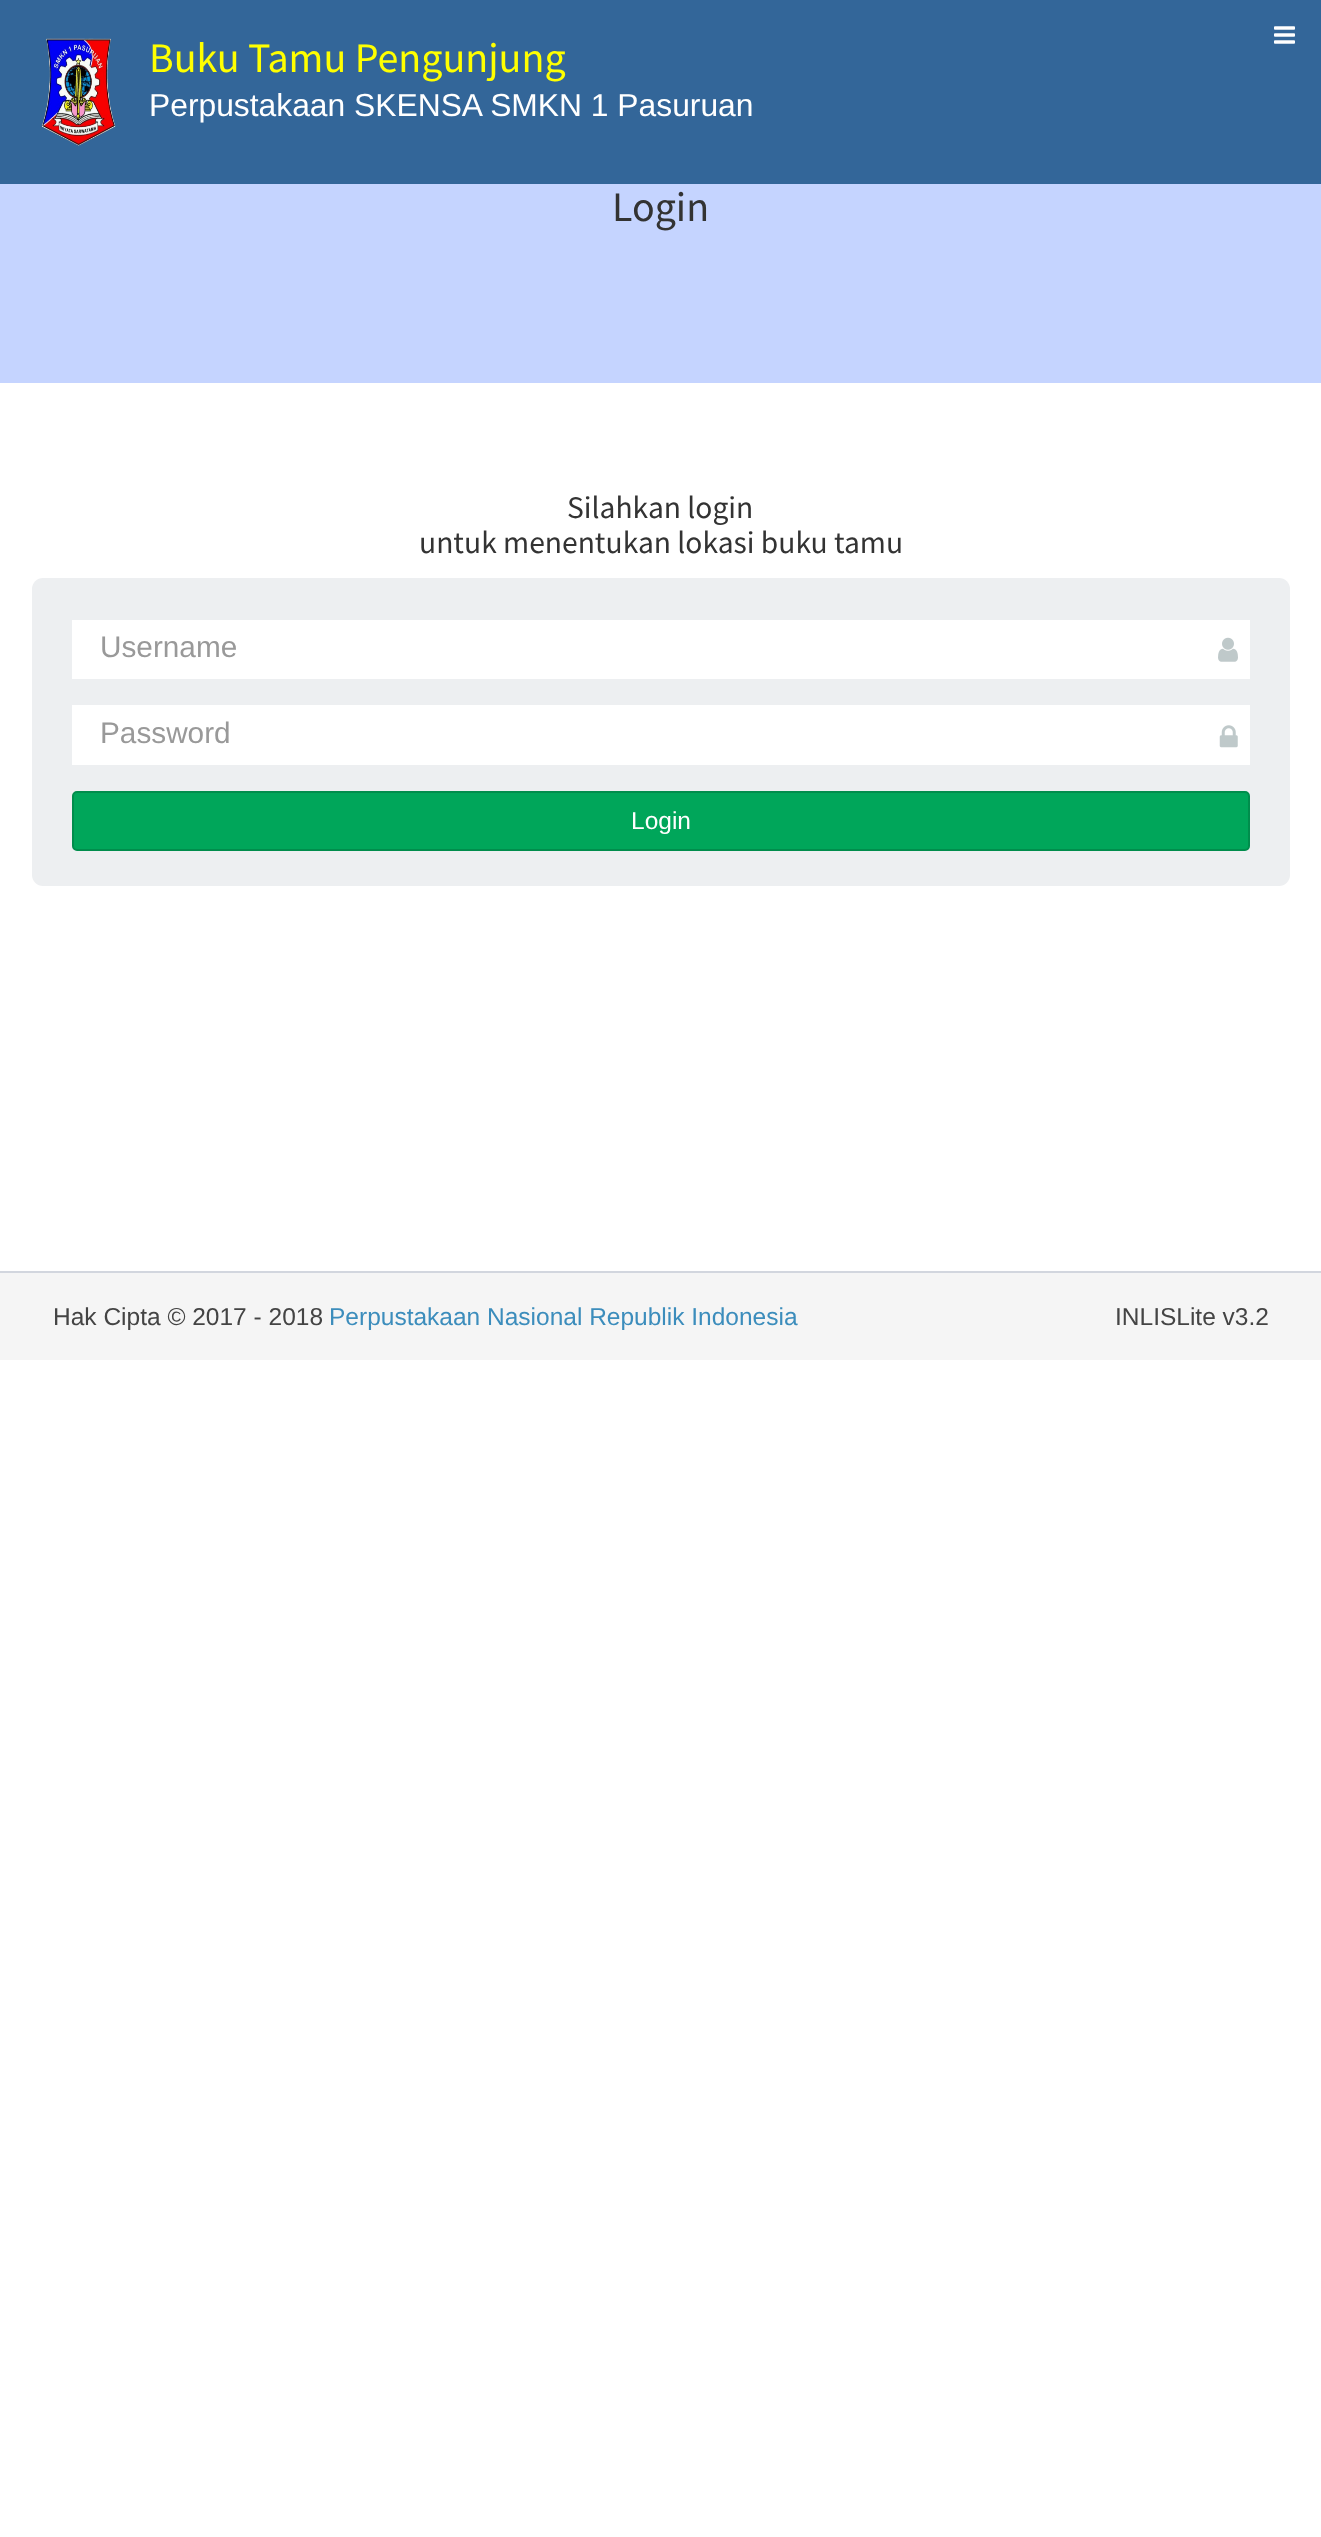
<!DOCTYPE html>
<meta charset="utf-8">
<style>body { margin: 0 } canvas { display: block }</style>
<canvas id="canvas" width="1321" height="2537"></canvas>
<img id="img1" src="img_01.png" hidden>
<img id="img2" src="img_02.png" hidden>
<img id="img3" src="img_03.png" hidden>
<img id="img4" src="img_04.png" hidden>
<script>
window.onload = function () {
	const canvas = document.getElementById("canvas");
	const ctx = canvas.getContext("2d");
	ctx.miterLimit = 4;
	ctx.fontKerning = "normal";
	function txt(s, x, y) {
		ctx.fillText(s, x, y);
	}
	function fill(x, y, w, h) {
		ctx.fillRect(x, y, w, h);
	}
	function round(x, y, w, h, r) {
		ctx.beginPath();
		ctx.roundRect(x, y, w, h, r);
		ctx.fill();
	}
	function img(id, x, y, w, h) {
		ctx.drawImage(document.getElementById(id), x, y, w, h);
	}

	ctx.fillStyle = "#FFFFFF";
	fill(0, 0, 1321, 2537);
	ctx.fillStyle = "#336699";
	fill(0, 0, 1321, 184);
	img("img1", 1274, 26, 21, 18);
	img("img2", 41, 38, 75, 108);
	ctx.fillStyle = "#C5D4FF";
	fill(0, 184, 1321, 199);
	ctx.fillStyle = "#EDEFF1";
	round(32, 578, 1258, 308, 11);
	ctx.fillStyle = "#FFFFFF";
	fill(72, 620, 1178, 59);
	img("img3", 1218, 637, 20, 25);
	fill(72, 705, 1178, 60);
	img("img4", 1219, 725, 19, 23);
	ctx.fillStyle = "#00A65A";
	ctx.beginPath();
	ctx.roundRect(73, 792, 1176, 58, 4);
	ctx.fill();
	ctx.strokeStyle = "#008D4C";
	ctx.lineWidth = 2;
	ctx.stroke();
	ctx.fillStyle = "#F5F5F5";
	fill(0, 1273, 1321, 87);
	ctx.fillStyle = "#D2D6DE";
	fill(0, 1271, 1321, 2);
	ctx.font = "42px Source Sans Pro";
	ctx.fillStyle = "#FFFF00";
	txt("Buku Tamu Pengunjung", 149, 72);
	ctx.font = "31.8px Liberation Sans";
	ctx.fillStyle = "#FFFFFF";
	txt("Perpustakaan SKENSA SMKN 1 Pasuruan", 149, 116);
	ctx.font = "42px Source Sans Pro";
	ctx.fillStyle = "#333333";
	txt("Login", 612, 221);
	ctx.font = "31.5px Source Sans Pro";
	txt("Silahkan login", 567, 518);
	txt("untuk menentukan lokasi buku tamu", 419, 553);
	ctx.font = "29.75px Liberation Sans";
	ctx.fillStyle = "#999999";
	txt("Username", 100, 657);
	txt("Password", 100, 743);
	ctx.font = "24.5px Liberation Sans";
	ctx.fillStyle = "#FFFFFF";
	txt("Login", 631, 829);
	ctx.fillStyle = "#444444";
	txt("Hak Cipta © 2017 - 2018", 53, 1325);
	ctx.fillStyle = "#3C8DBC";
	txt("Perpustakaan Nasional Republik Indonesia", 329, 1325);
	ctx.fillStyle = "#444444";
	txt("INLISLite v3.2", 1115, 1325);
};
</script>
